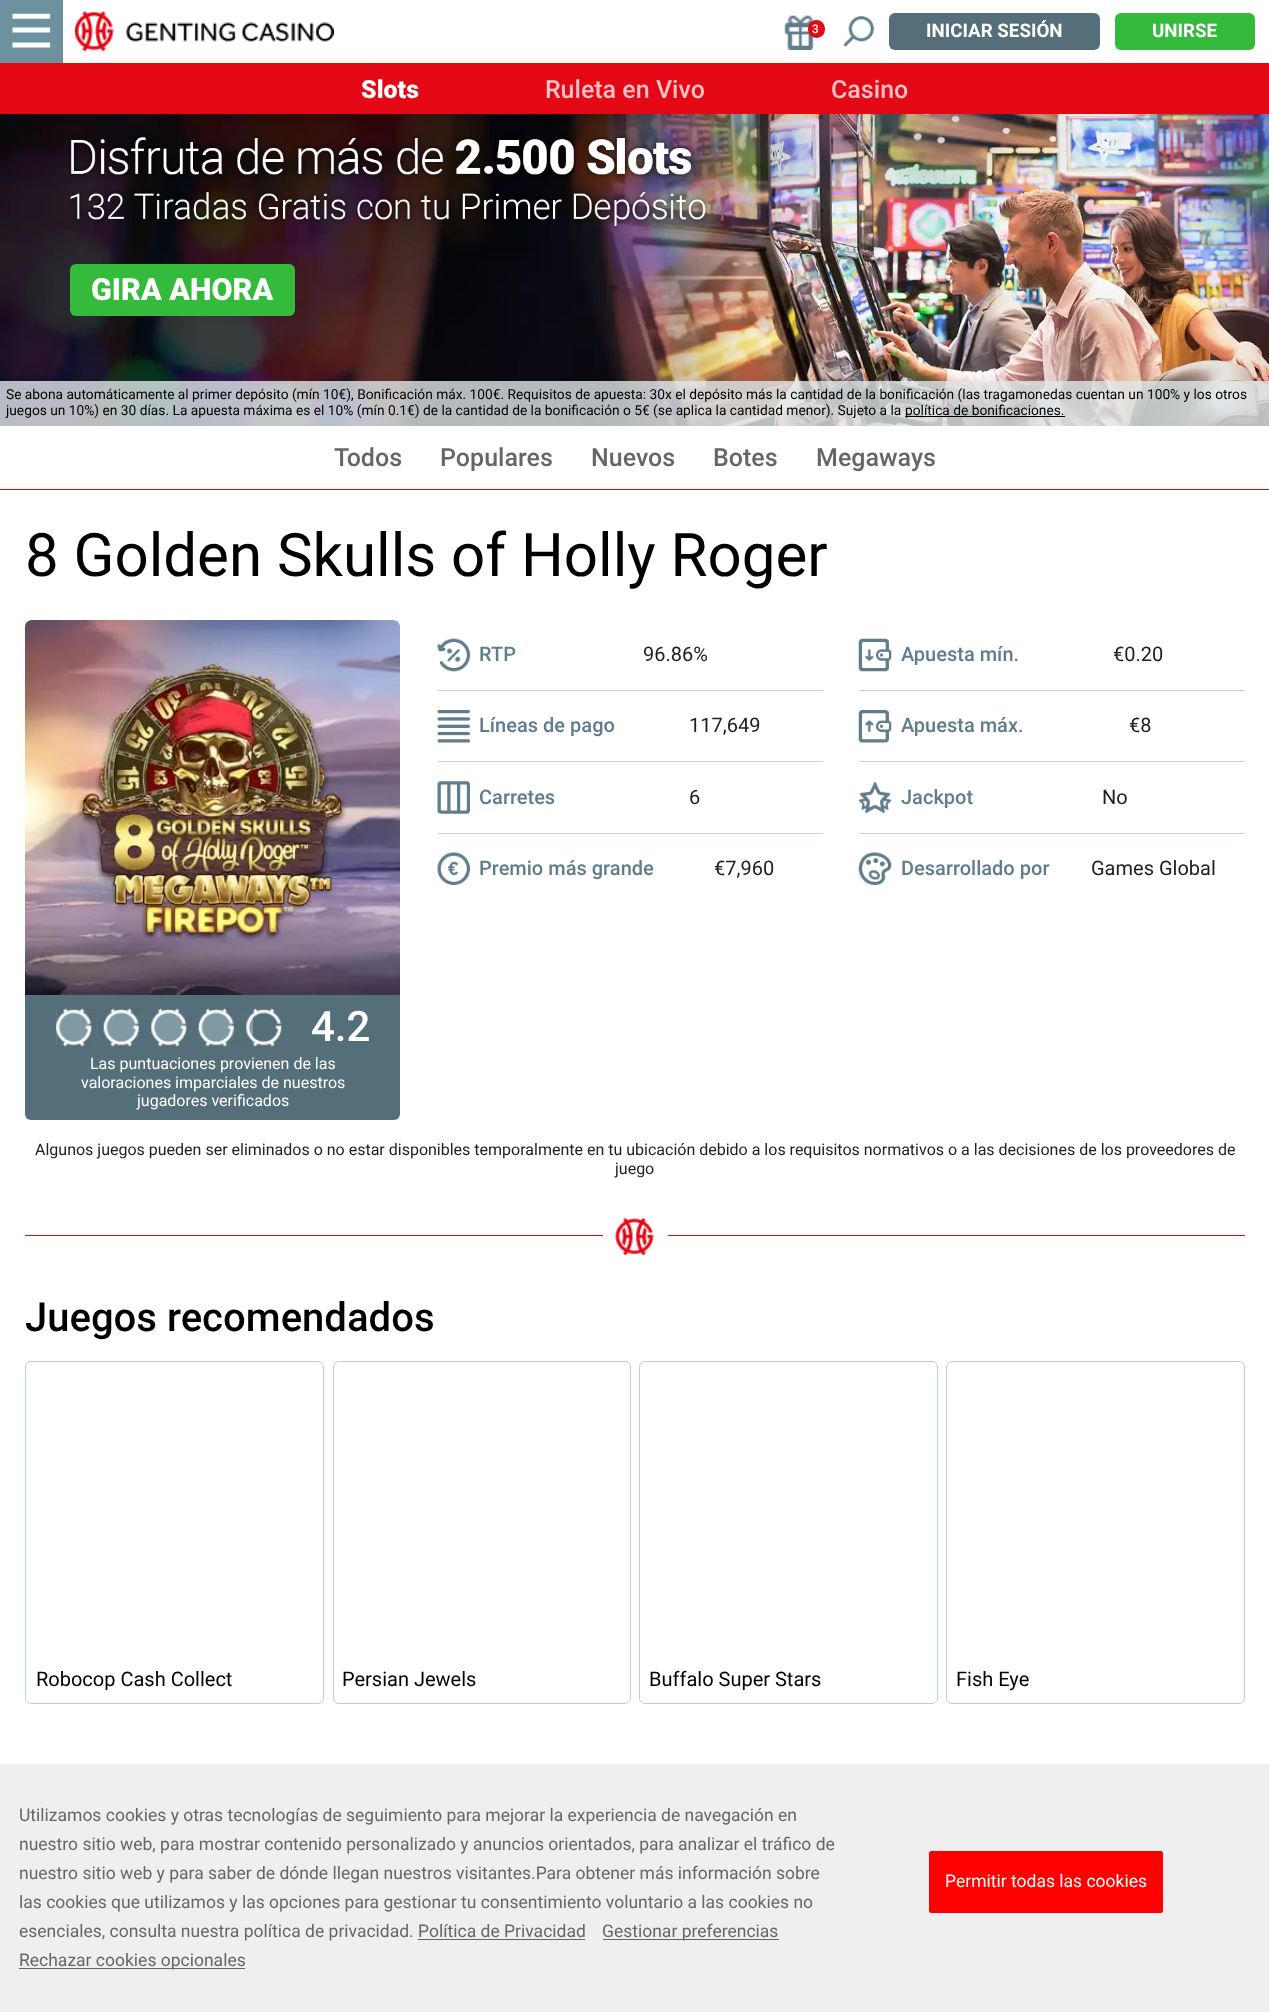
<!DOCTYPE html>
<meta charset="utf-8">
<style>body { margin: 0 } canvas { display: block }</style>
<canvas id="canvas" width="1269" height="2012"></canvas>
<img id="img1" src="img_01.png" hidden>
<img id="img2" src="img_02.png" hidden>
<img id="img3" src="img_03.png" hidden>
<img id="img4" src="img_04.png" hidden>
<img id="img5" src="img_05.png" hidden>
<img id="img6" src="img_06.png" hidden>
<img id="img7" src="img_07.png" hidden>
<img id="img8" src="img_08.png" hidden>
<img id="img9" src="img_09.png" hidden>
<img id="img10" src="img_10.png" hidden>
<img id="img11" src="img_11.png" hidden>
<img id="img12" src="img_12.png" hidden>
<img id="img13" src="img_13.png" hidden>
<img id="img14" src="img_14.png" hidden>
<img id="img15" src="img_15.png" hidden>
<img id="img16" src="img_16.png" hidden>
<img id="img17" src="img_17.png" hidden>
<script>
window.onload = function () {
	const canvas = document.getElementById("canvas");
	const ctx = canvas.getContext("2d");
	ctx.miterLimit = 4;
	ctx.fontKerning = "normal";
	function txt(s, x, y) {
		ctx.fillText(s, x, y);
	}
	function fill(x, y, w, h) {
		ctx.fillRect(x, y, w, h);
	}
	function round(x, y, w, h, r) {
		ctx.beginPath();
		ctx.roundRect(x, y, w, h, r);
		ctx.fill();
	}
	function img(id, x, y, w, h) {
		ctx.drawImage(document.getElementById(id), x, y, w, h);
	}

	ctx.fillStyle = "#FFFFFF";
	fill(0, 0, 1269, 2012);
	ctx.fillStyle = "#6E919F";
	fill(0, 0, 63, 63);
	img("img1", 12, 13, 39, 35);
	img("img2", 75, 11, 259, 41);
	img("img3", 784, 15, 30, 35);
	ctx.fillStyle = "#E30813";
	round(808, 20, 17, 18, 8.5);
	img("img4", 843, 16, 31, 31);
	ctx.fillStyle = "#546F7A";
	round(889, 13, 211, 37, 6);
	ctx.fillStyle = "#34BB3B";
	round(1115, 13, 140, 37, 6);
	ctx.fillStyle = "#E40814";
	fill(0, 63, 1269, 51);
	img("img5", 0, 114, 1269, 312);
	img("img6", 68, 134, 642, 95);
	ctx.fillStyle = "#34BB3B";
	round(70, 264, 225, 52, 6);
	ctx.fillStyle = "rgba(224, 231, 234, 0.8)";
	fill(0, 381, 1269, 45);
	ctx.fillStyle = "#000000";
	fill(905, 416, 160, 1);
	ctx.fillStyle = "#E40814";
	fill(0, 489, 1269, 1);
	ctx.fillStyle = "#C7D2D7";
	fill(438, 690, 385, 1);
	img("img7", 437, 638, 33, 34);
	fill(859, 690, 386, 1);
	img("img8", 858, 638, 34, 34);
	fill(438, 761, 385, 1);
	img("img9", 437, 710, 33, 33);
	fill(859, 761, 386, 1);
	img("img10", 858, 710, 34, 33);
	fill(438, 833, 385, 1);
	img("img11", 437, 781, 33, 33);
	fill(859, 833, 386, 1);
	img("img12", 858, 782, 34, 31);
	img("img13", 437, 852, 33, 33);
	img("img14", 858, 852, 34, 33);
	img("img15", 25, 620, 375, 375);
	ctx.fillStyle = "#546E7A";
	ctx.beginPath();
	ctx.roundRect(25, 995, 375, 125, [0, 0, 6, 6]);
	ctx.fill();
	ctx.fillStyle = "#8199A4";
	fill(56, 1009, 197, 37);
	img("img16", 56, 1008, 226, 39);
	img("img17", 614, 1217, 40, 38);
	ctx.fillStyle = "#E30613";
	fill(25, 1235, 578, 1);
	fill(668, 1235, 577, 1);
	ctx.beginPath();
	ctx.roundRect(25.5, 1361.5, 298, 342, 5.5);
	ctx.strokeStyle = "#BFCCD2";
	ctx.stroke();
	ctx.beginPath();
	ctx.roundRect(333.5, 1361.5, 297, 342, 5.5);
	ctx.stroke();
	ctx.beginPath();
	ctx.roundRect(639.5, 1361.5, 298, 342, 5.5);
	ctx.stroke();
	ctx.beginPath();
	ctx.roundRect(946.5, 1361.5, 298, 342, 5.5);
	ctx.stroke();
	ctx.fillStyle = "#EFEFEF";
	fill(0, 1764, 1269, 248);
	ctx.fillStyle = "#666666";
	fill(603, 1939, 176, 1);
	fill(418, 1939, 167, 1);
	fill(19, 1968, 226, 1);
	ctx.fillStyle = "#FF0000";
	round(929, 1851, 234, 62, 2.5);
	ctx.font = "500 12px Roboto";
	ctx.fillStyle = "#FFFFFF";
	txt("3", 812, 33);
	ctx.font = "bold 18.75px Roboto";
	txt("INICIAR SESIÓN", 926, 37);
	txt("UNIRSE", 1152, 37);
	ctx.font = "900 25px Roboto";
	txt("Slots", 361, 98);
	ctx.font = "500 25px Roboto";
	ctx.fillStyle = "#F9C1C4";
	txt("Ruleta en Vivo", 545, 98);
	txt("Casino", 831, 98);
	ctx.font = "900 30.5px Roboto";
	ctx.fillStyle = "#FFFFFF";
	txt("GIRA AHORA", 91, 300);
	ctx.font = "13.75px Roboto";
	ctx.fillStyle = "#000000";
	txt("Se abona automáticamente al primer depósito (mín 10€), Bonificación máx. 100€. Requisitos de apuesta: 30x el depósito más la cantidad de la bonificación (las tragamonedas cuentan un 100% y los otros", 6, 399);
	txt("juegos un 10%) en 30 días. La apuesta máxima es el 10% (mín 0.1€) de la cantidad de la bonificación o 5€ (se aplica la cantidad menor). Sujeto a la", 6, 415);
	txt("política de bonificaciones.", 905, 415);
	ctx.font = "500 25px Roboto";
	ctx.fillStyle = "#666666";
	txt("Todos", 334, 466);
	txt("Populares", 440, 466);
	txt("Nuevos", 591, 466);
	txt("Botes", 713, 466);
	txt("Megaways", 816, 466);
	ctx.font = "60px Roboto";
	ctx.fillStyle = "#000000";
	txt("8 Golden Skulls of Holly Roger", 25, 576);
	ctx.font = "500 20px Roboto";
	ctx.fillStyle = "#607D8B";
	txt("RTP", 479, 661);
	ctx.font = "20px Roboto";
	ctx.fillStyle = "#212121";
	txt("96.86%", 643, 661);
	ctx.font = "500 20px Roboto";
	ctx.fillStyle = "#607D8B";
	txt("Apuesta mín.", 901, 661);
	ctx.font = "20px Roboto";
	ctx.fillStyle = "#212121";
	txt("€0.20", 1113, 661);
	ctx.font = "500 20px Roboto";
	ctx.fillStyle = "#607D8B";
	txt("Líneas de pago", 479, 732);
	ctx.font = "20px Roboto";
	ctx.fillStyle = "#212121";
	txt("117,649", 689, 732);
	ctx.font = "500 20px Roboto";
	ctx.fillStyle = "#607D8B";
	txt("Apuesta máx.", 901, 732);
	ctx.font = "20px Roboto";
	ctx.fillStyle = "#212121";
	txt("€8", 1129, 732);
	ctx.font = "500 20px Roboto";
	ctx.fillStyle = "#607D8B";
	txt("Carretes", 479, 804);
	ctx.font = "20px Roboto";
	ctx.fillStyle = "#212121";
	txt("6", 689, 804);
	ctx.font = "500 20px Roboto";
	ctx.fillStyle = "#607D8B";
	txt("Jackpot", 901, 804);
	ctx.font = "20px Roboto";
	ctx.fillStyle = "#212121";
	txt("No", 1102, 804);
	ctx.font = "500 20px Roboto";
	ctx.fillStyle = "#607D8B";
	txt("Premio más grande", 479, 875);
	ctx.font = "20px Roboto";
	ctx.fillStyle = "#212121";
	txt("€7,960", 714, 875);
	ctx.font = "500 20px Roboto";
	ctx.fillStyle = "#607D8B";
	txt("Desarrollado por", 901, 875);
	ctx.font = "20px Roboto";
	ctx.fillStyle = "#212121";
	txt("Games Global", 1091, 875);
	ctx.font = "500 42px Roboto";
	ctx.fillStyle = "#FFFFFF";
	txt("4.2", 311, 1041);
	ctx.font = "16px Roboto";
	txt("Las puntuaciones provienen de las", 90, 1069);
	txt("valoraciones imparciales de nuestros", 81, 1088);
	txt("jugadores verificados", 137, 1106);
	ctx.fillStyle = "#212121";
	txt("Algunos juegos pueden ser eliminados o no estar disponibles temporalmente en tu ubicación debido a los requisitos normativos o a las decisiones de los proveedores de", 35, 1155);
	txt("juego", 615, 1174);
	ctx.font = "500 40px Roboto";
	ctx.fillStyle = "#000000";
	txt("Juegos recomendados", 25, 1331);
	ctx.font = "20px Roboto";
	txt("Robocop Cash Collect", 36, 1686);
	txt("Persian Jewels", 342, 1686);
	txt("Buffalo Super Stars", 649, 1686);
	txt("Fish Eye", 956, 1686);
	ctx.font = "17.5px Roboto";
	ctx.fillStyle = "#666666";
	txt("Utilizamos cookies y otras tecnologías de seguimiento para mejorar la experiencia de navegación en", 19, 1821);
	txt("nuestro sitio web, para mostrar contenido personalizado y anuncios orientados, para analizar el tráfico de", 19, 1850);
	txt("nuestro sitio web y para saber de dónde llegan nuestros visitantes.Para obtener más información sobre", 19, 1879);
	txt("las cookies que utilizamos y las opciones para gestionar tu consentimiento voluntario a las cookies no", 19, 1908);
	txt("esenciales, consulta nuestra política de privacidad. Política de Privacidad", 19, 1937);
	txt("Gestionar preferencias", 602, 1937);
	txt("Rechazar cookies opcionales", 19, 1966);
	ctx.fillStyle = "#FFFFFF";
	txt("Permitir todas las cookies", 945, 1887);
};
</script>
